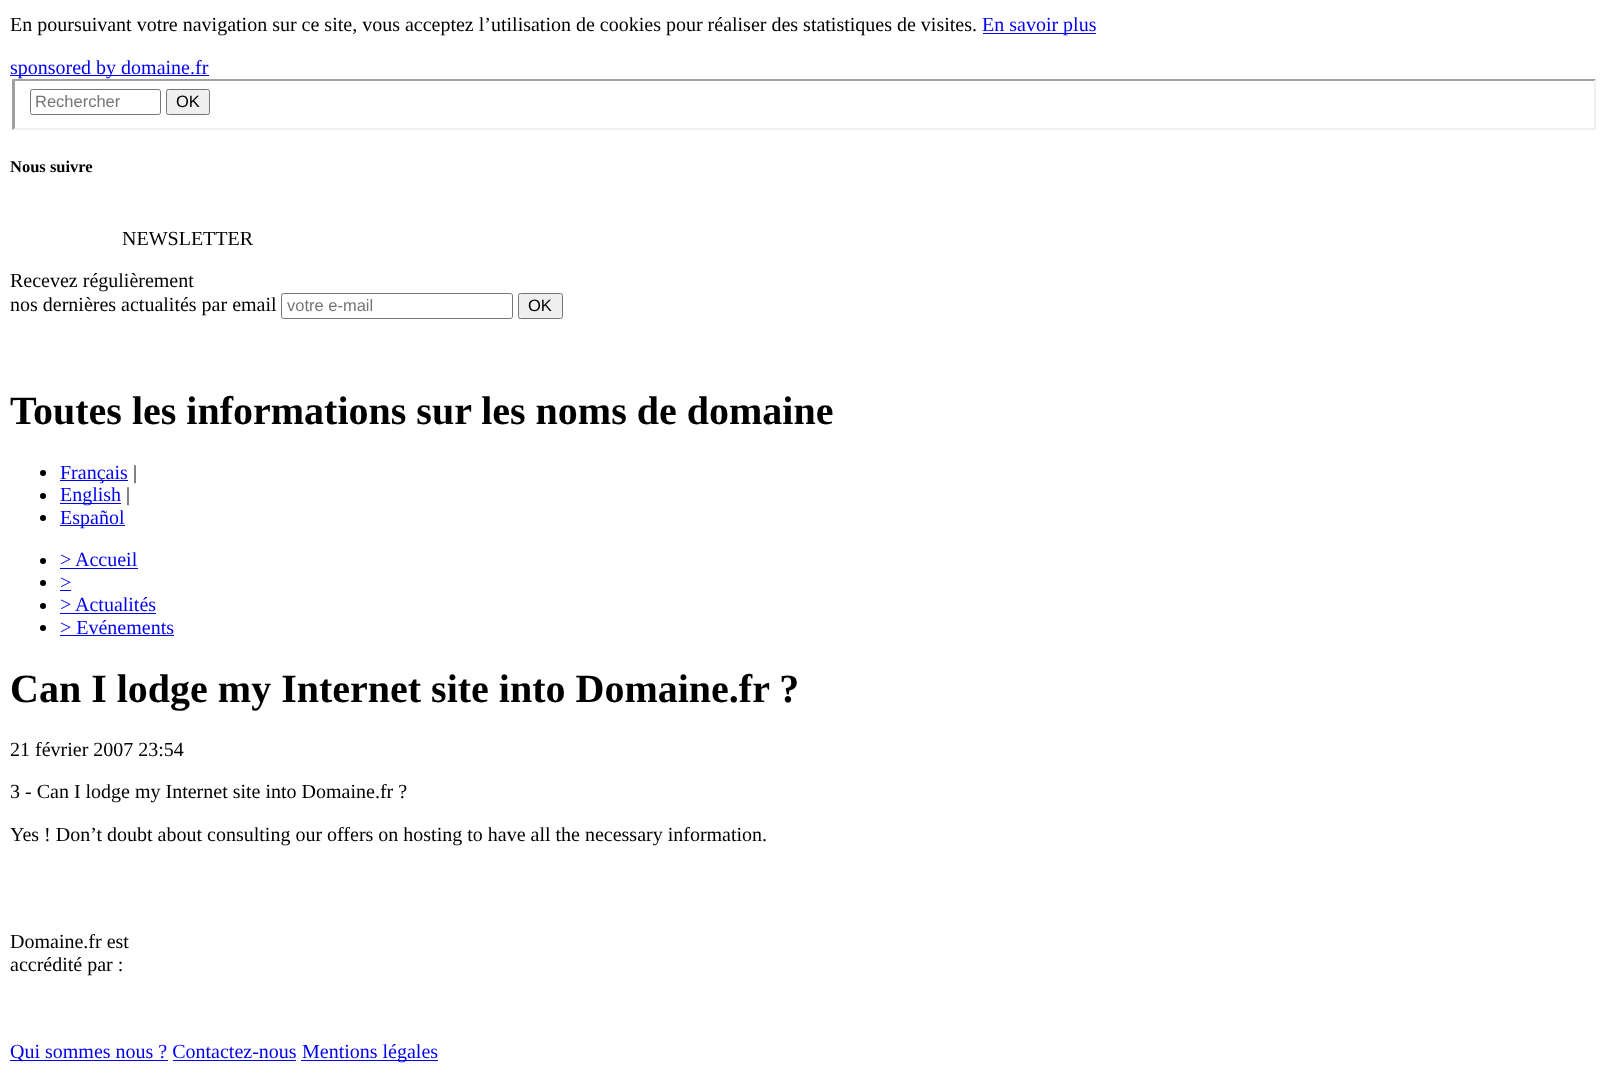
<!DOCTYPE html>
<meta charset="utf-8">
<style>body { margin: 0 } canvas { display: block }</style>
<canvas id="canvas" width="1608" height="1078"></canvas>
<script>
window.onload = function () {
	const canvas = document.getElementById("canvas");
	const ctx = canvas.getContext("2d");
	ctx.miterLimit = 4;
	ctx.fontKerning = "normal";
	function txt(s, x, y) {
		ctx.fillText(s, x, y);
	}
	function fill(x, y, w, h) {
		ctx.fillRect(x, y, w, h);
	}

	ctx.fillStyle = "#FFFFFF";
	fill(0, 0, 1608, 1078);
	ctx.fillStyle = "#0000EE";
	fill(983, 33, 113, 1);
	fill(10, 75, 199, 1);
	ctx.fillStyle = "#9F9F9F";
	ctx.beginPath();
	ctx.moveTo(12, 79);
	ctx.lineTo(1596, 79);
	ctx.lineTo(1594, 81);
	ctx.lineTo(15, 81);
	ctx.closePath();
	ctx.fill();
	ctx.fillStyle = "#EFEFEF";
	ctx.beginPath();
	ctx.moveTo(1596, 79);
	ctx.lineTo(1596, 130);
	ctx.lineTo(1594, 128);
	ctx.lineTo(1594, 81);
	ctx.closePath();
	ctx.fill();
	ctx.beginPath();
	ctx.moveTo(1596, 130);
	ctx.lineTo(12, 130);
	ctx.lineTo(15, 128);
	ctx.lineTo(1594, 128);
	ctx.closePath();
	ctx.fill();
	ctx.fillStyle = "#9F9F9F";
	ctx.beginPath();
	ctx.moveTo(12, 130);
	ctx.lineTo(12, 79);
	ctx.lineTo(15, 81);
	ctx.lineTo(15, 128);
	ctx.closePath();
	ctx.fill();
	ctx.beginPath();
	ctx.roundRect(30.5, 89.5, 130, 25, 2);
	ctx.strokeStyle = "#767676";
	ctx.stroke();
	ctx.fillStyle = "#EFEFEF";
	ctx.beginPath();
	ctx.roundRect(166.5, 89.5, 43, 25, 2);
	ctx.fill();
	ctx.stroke();
	ctx.beginPath();
	ctx.roundRect(281.5, 293.5, 231, 25, 2);
	ctx.stroke();
	ctx.beginPath();
	ctx.roundRect(518.5, 293.5, 44, 25, 2);
	ctx.fill();
	ctx.stroke();
	ctx.fillStyle = "#000000";
	ctx.beginPath();
	ctx.arc(43, 473, 3, 0, Math.PI * 2);
	ctx.fill();
	ctx.fillStyle = "#0000EE";
	fill(60, 480, 68, 1);
	ctx.fillStyle = "#000000";
	ctx.beginPath();
	ctx.arc(43, 496, 3, 0, Math.PI * 2);
	ctx.fill();
	ctx.fillStyle = "#0000EE";
	fill(60, 503, 61, 1);
	ctx.fillStyle = "#000000";
	ctx.beginPath();
	ctx.arc(43, 518, 3, 0, Math.PI * 2);
	ctx.fill();
	ctx.fillStyle = "#0000EE";
	fill(60, 525, 65, 1);
	ctx.fillStyle = "#000000";
	ctx.beginPath();
	ctx.arc(43, 561, 3, 0, Math.PI * 2);
	ctx.fill();
	ctx.fillStyle = "#0000EE";
	fill(60, 568, 78, 1);
	ctx.fillStyle = "#000000";
	ctx.beginPath();
	ctx.arc(43, 583, 3, 0, Math.PI * 2);
	ctx.fill();
	ctx.fillStyle = "#0000EE";
	fill(60, 590, 11, 1);
	ctx.fillStyle = "#000000";
	ctx.beginPath();
	ctx.arc(43, 606, 3, 0, Math.PI * 2);
	ctx.fill();
	ctx.fillStyle = "#0000EE";
	fill(60, 613, 96, 1);
	ctx.fillStyle = "#000000";
	ctx.beginPath();
	ctx.arc(43, 628, 3, 0, Math.PI * 2);
	ctx.fill();
	ctx.fillStyle = "#0000EE";
	fill(60, 635, 114, 1);
	fill(10, 1060, 158, 1);
	fill(301, 1060, 137, 1);
	fill(173, 1060, 123, 1);
	ctx.font = "20px Liberation Serif";
	ctx.fillStyle = "#000000";
	txt("En poursuivant votre navigation sur ce site, vous acceptez l’utilisation de cookies pour réaliser des statistiques de visites.", 10, 31);
	ctx.fillStyle = "#0000EE";
	txt("En savoir plus", 982, 31);
	txt("sponsored by domaine.fr", 10, 74);
	ctx.font = "16.5px Liberation Sans";
	ctx.fillStyle = "#757575";
	txt("Rechercher", 35, 107);
	ctx.fillStyle = "#000000";
	txt("OK", 176, 107);
	ctx.font = "bold 16.5px Liberation Serif";
	txt("Nous suivre", 10, 172);
	ctx.font = "20px Liberation Serif";
	txt("NEWSLETTER", 122, 245);
	txt("Recevez régulièrement", 10, 287);
	txt("nos dernières actualités par email", 10, 311);
	ctx.font = "16.5px Liberation Sans";
	ctx.fillStyle = "#757575";
	txt("votre e-mail", 287, 311);
	ctx.fillStyle = "#000000";
	txt("OK", 528, 311);
	ctx.font = "bold 40px Liberation Serif";
	txt("Toutes les informations sur les noms de domaine", 10, 424);
	ctx.font = "20px Liberation Serif";
	ctx.fillStyle = "#0000EE";
	txt("Français", 60, 479);
	ctx.fillStyle = "#000000";
	txt("|", 133, 479);
	ctx.fillStyle = "#0000EE";
	txt("English", 60, 501);
	ctx.fillStyle = "#000000";
	txt("|", 126, 501);
	ctx.fillStyle = "#0000EE";
	txt("Español", 60, 524);
	txt(">", 60, 566);
	txt("Accueil", 75, 566);
	txt(">", 60, 589);
	txt(">", 60, 611);
	txt("Actualités", 75, 611);
	txt("> Evénements", 60, 634);
	ctx.font = "bold 40px Liberation Serif";
	ctx.fillStyle = "#000000";
	txt("Can I lodge my Internet site into Domaine.fr ?", 10, 702);
	ctx.font = "20px Liberation Serif";
	txt("21 février 2007 23:54", 10, 756);
	txt("3 - Can I lodge my Internet site into Domaine.fr ?", 10, 798);
	txt("Yes ! Don’t doubt about consulting our offers on hosting to have all the necessary information.", 10, 841);
	txt("Domaine.fr est", 10, 948);
	txt("accrédité par :", 10, 971);
	ctx.fillStyle = "#0000EE";
	txt("Qui sommes nous ? Contactez-nous", 10, 1058);
	txt("Mentions légales", 302, 1058);
};
</script>
